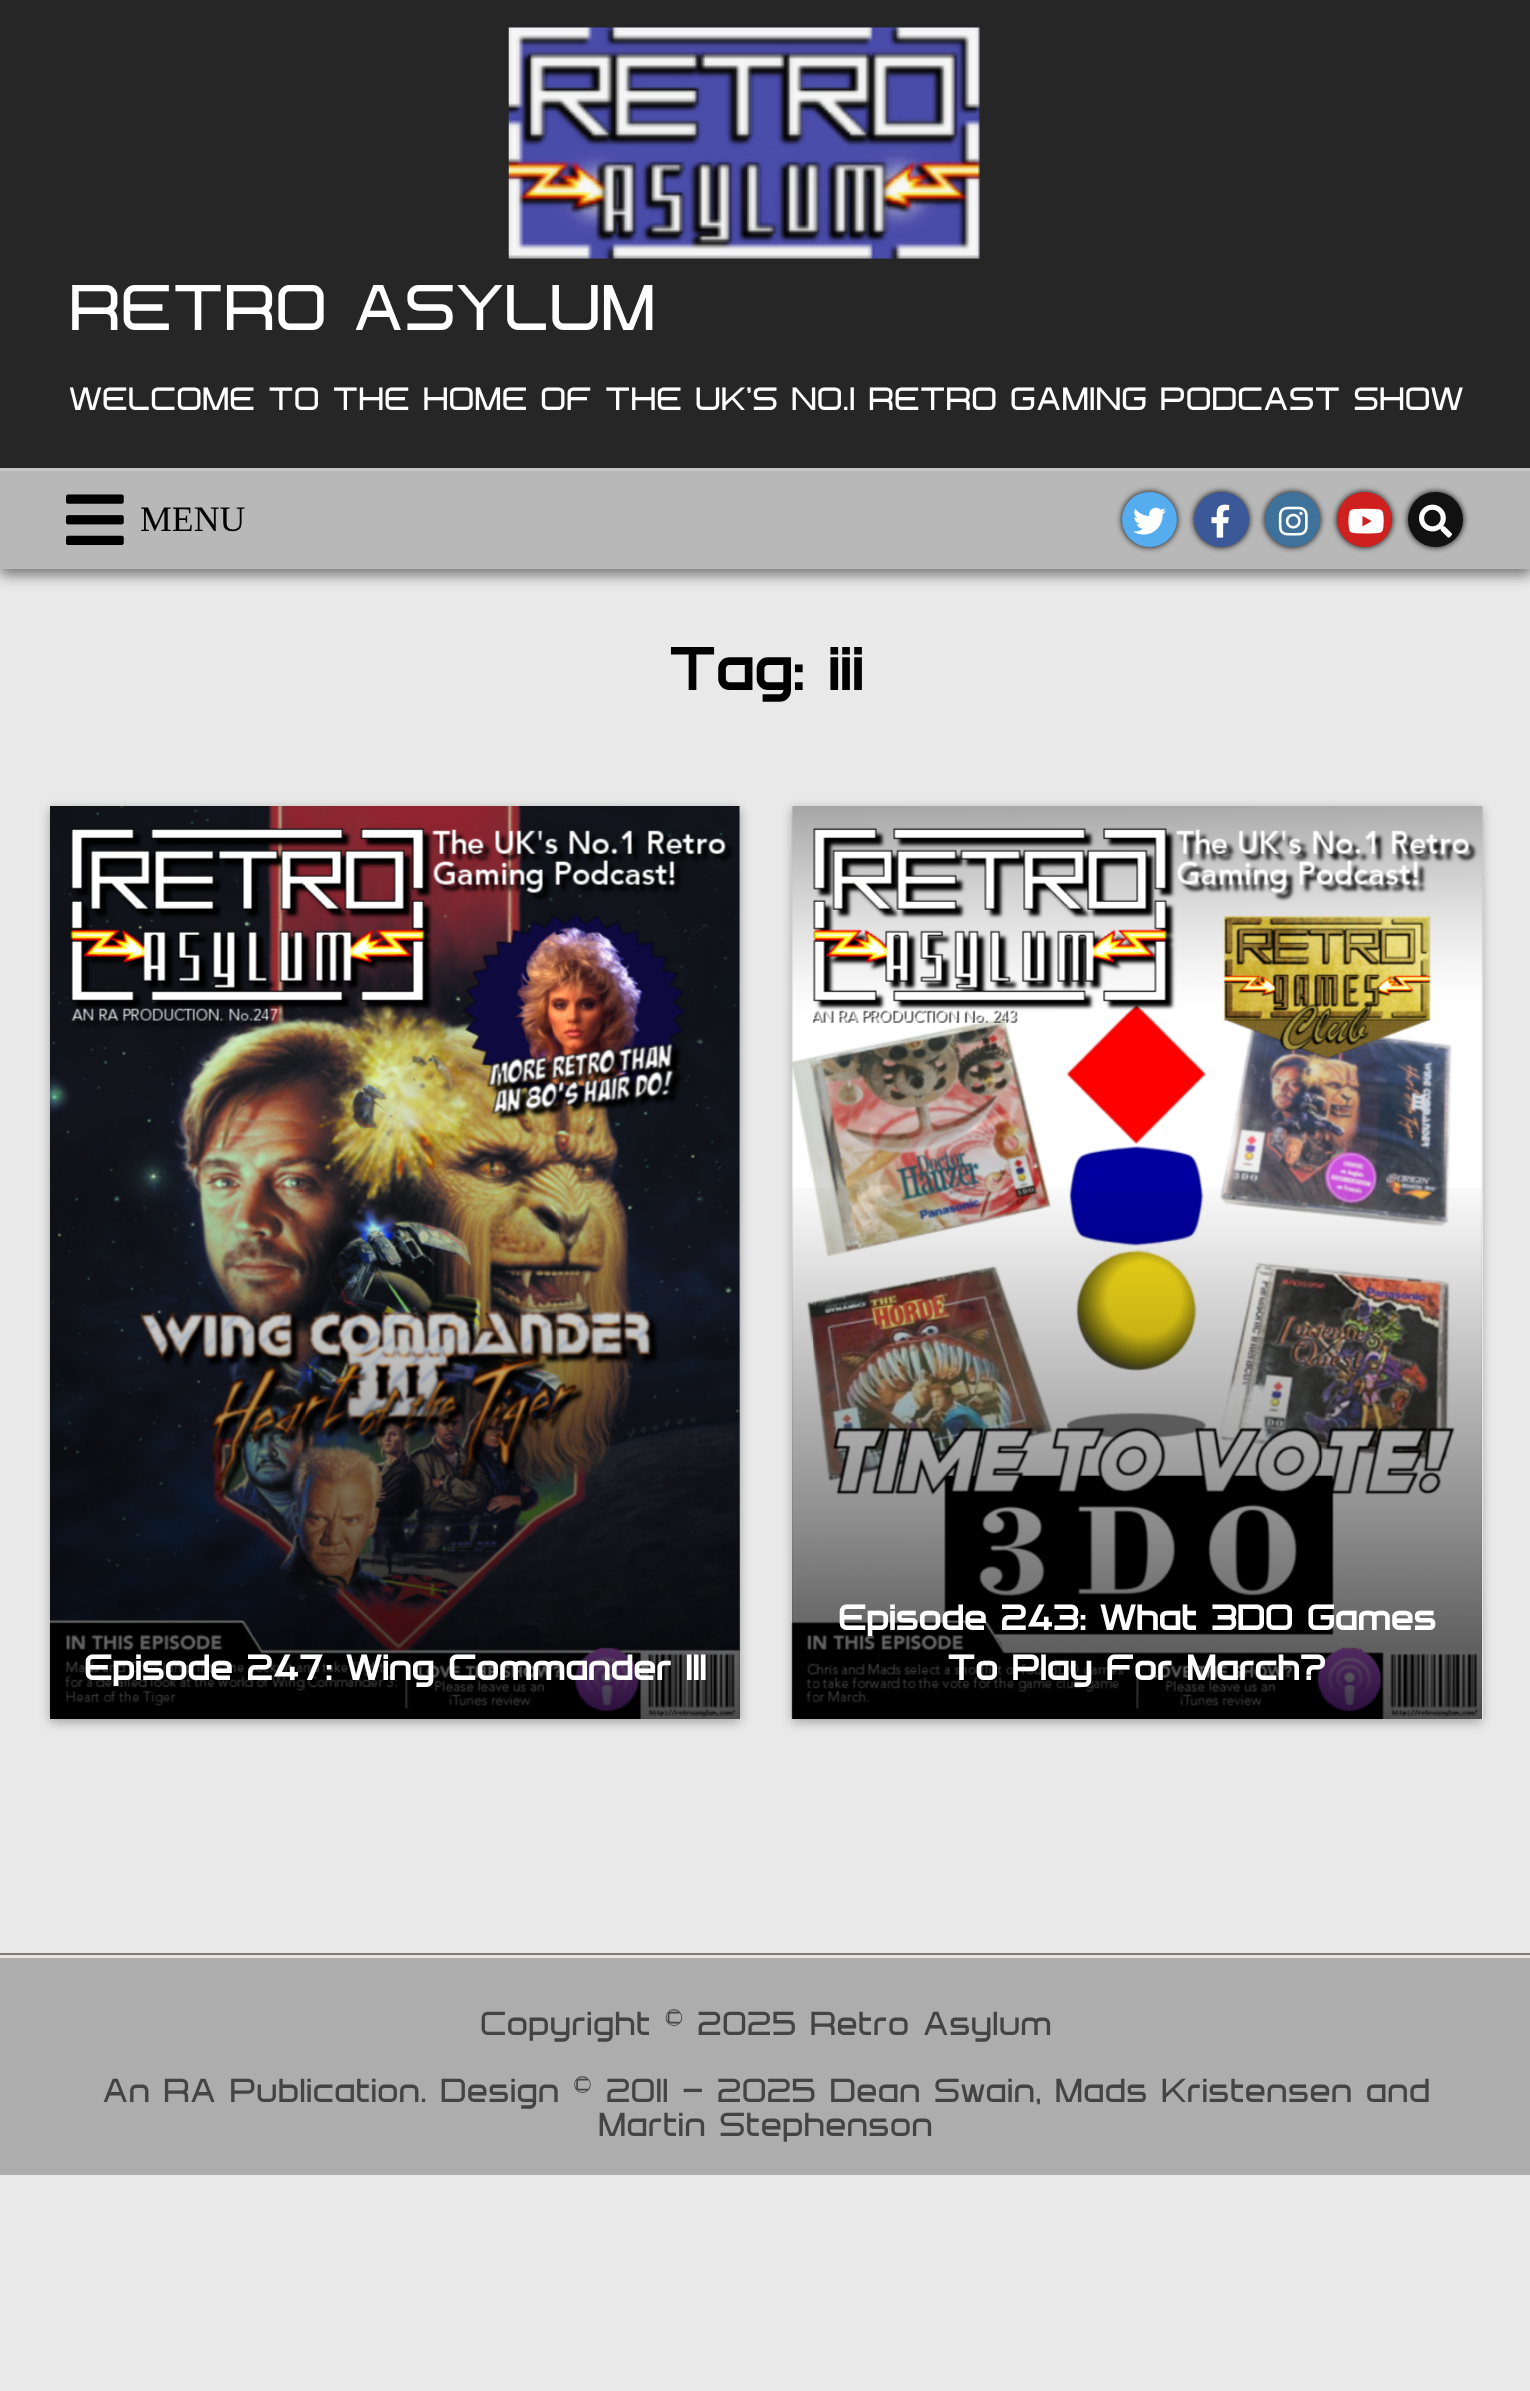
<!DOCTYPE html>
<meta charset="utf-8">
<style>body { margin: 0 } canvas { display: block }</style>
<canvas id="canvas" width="1530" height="2391"></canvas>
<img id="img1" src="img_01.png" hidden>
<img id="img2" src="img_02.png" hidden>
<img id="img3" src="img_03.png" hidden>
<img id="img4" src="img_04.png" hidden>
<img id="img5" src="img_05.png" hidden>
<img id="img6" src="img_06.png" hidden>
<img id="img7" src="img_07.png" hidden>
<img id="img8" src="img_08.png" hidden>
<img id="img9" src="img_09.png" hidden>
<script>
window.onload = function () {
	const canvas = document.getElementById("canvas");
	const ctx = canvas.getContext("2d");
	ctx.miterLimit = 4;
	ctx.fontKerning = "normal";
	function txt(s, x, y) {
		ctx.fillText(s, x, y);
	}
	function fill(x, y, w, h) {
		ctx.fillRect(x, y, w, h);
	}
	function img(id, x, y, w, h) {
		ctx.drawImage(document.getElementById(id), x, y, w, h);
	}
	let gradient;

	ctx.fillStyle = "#E9E9E9";
	fill(0, 0, 1530, 2391);
	ctx.fillStyle = "rgba(0, 0, 0, 0.5)";
	ctx.filter = "blur(7px)";
	ctx.beginPath();
	ctx.rect(0, 473, 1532, 102);
	ctx.fill();
	ctx.filter = "none";
	ctx.fillStyle = "#262626";
	fill(0, 0, 1530, 468);
	img("img1", 508, 27, 472, 232);
	ctx.fillStyle = "#B8B8B8";
	fill(0, 471, 1530, 98);
	ctx.fillStyle = "#C5C5C5";
	fill(0, 468, 1530, 3);
	img("img2", 66, 494, 58, 51);
	ctx.fillStyle = "#000000";
	ctx.filter = "blur(3px)";
	ctx.beginPath();
	ctx.roundRect(1122, 492, 55, 55, 27.5);
	ctx.fill();
	ctx.filter = "none";
	ctx.fillStyle = "#55ACEE";
	ctx.beginPath();
	ctx.arc(1149.5, 519.5, 27.5, 0, Math.PI * 2);
	ctx.fill();
	img("img3", 1133, 507, 33, 28);
	ctx.fillStyle = "#000000";
	ctx.filter = "blur(3px)";
	ctx.beginPath();
	ctx.roundRect(1194, 492, 55, 55, 27.5);
	ctx.fill();
	ctx.filter = "none";
	ctx.fillStyle = "#3B5998";
	ctx.beginPath();
	ctx.arc(1221.5, 519.5, 27.5, 0, Math.PI * 2);
	ctx.fill();
	img("img4", 1211, 504, 19, 34);
	ctx.fillStyle = "#000000";
	ctx.filter = "blur(3px)";
	ctx.beginPath();
	ctx.roundRect(1265, 492, 55, 55, 27.5);
	ctx.fill();
	ctx.filter = "none";
	ctx.fillStyle = "#3F729B";
	ctx.beginPath();
	ctx.arc(1292.5, 519.5, 27.5, 0, Math.PI * 2);
	ctx.fill();
	img("img5", 1278, 506, 30, 30);
	ctx.fillStyle = "#000000";
	ctx.filter = "blur(3px)";
	ctx.beginPath();
	ctx.roundRect(1337, 492, 55, 55, 27.5);
	ctx.fill();
	ctx.filter = "none";
	ctx.fillStyle = "#CD201F";
	ctx.beginPath();
	ctx.arc(1364.5, 519.5, 27.5, 0, Math.PI * 2);
	ctx.fill();
	img("img6", 1348, 508, 36, 26);
	ctx.fillStyle = "#000000";
	ctx.filter = "blur(3px)";
	ctx.beginPath();
	ctx.roundRect(1408, 492, 55, 55, 27.5);
	ctx.fill();
	ctx.filter = "none";
	ctx.fillStyle = "#111111";
	ctx.beginPath();
	ctx.arc(1435.5, 519.5, 27.5, 0, Math.PI * 2);
	ctx.fill();
	img("img7", 1419, 504, 33, 34);
	ctx.fillStyle = "rgba(0, 0, 0, 0.3)";
	ctx.filter = "blur(5.5px)";
	ctx.beginPath();
	ctx.rect(50, 809, 690, 913);
	ctx.fill();
	ctx.filter = "none";
	img("img8", 50, 806, 691, 913);
	gradient = ctx.createLinearGradient(395, 1719, 395, 806);
	gradient.addColorStop(0, "rgba(0, 0, 0, 0.7)");
	gradient.addColorStop(0.6, "rgba(0, 0, 0, 0)");
	gradient.addColorStop(1, "rgba(0, 0, 0, 0)");
	ctx.fillStyle = gradient;
	fill(50, 1188, 690, 531);
	ctx.fillStyle = "rgba(0, 0, 0, 0.3)";
	ctx.filter = "blur(5.5px)";
	ctx.beginPath();
	ctx.rect(792, 809, 690, 913);
	ctx.fill();
	ctx.filter = "none";
	img("img9", 791, 806, 692, 913);
	gradient = ctx.createLinearGradient(1137, 1719, 1137, 806);
	gradient.addColorStop(0, "rgba(0, 0, 0, 0.7)");
	gradient.addColorStop(0.6, "rgba(0, 0, 0, 0)");
	gradient.addColorStop(1, "rgba(0, 0, 0, 0)");
	ctx.fillStyle = gradient;
	fill(792, 1188, 690, 531);
	ctx.fillStyle = "#ADADAD";
	fill(0, 1958, 1530, 217);
	ctx.fillStyle = "#7D7D7D";
	fill(0, 1953, 1530, 2);
	ctx.fillStyle = "#EAE3E3";
	fill(0, 1955, 1530, 3);
	ctx.font = "66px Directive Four";
	ctx.fillStyle = "#FFFFFF";
	txt("RETRO ASYLUM", 69, 330);
	ctx.font = "33px Directive Four";
	txt("WELCOME TO THE HOME OF THE UK'S NO.1 RETRO GAMING PODCAST SHOW", 69, 410);
	ctx.font = "35.75px Liberation Serif";
	ctx.fillStyle = "#000000";
	txt("MENU", 140, 531);
	ctx.font = "bold 60.5px Directive Four";
	txt("Tag: iii", 668, 690);
	ctx.font = "bold 35.75px Directive Four";
	ctx.fillStyle = "#FFFFFF";
	txt("Episode 247: Wing Commander III", 84, 1680);
	txt("Episode 243: What 3DO Games", 838, 1630);
	txt("To Play For March?", 947, 1680);
	ctx.font = "33.95px Directive Four";
	ctx.fillStyle = "#444444";
	txt("Copyright © 2025 Retro Asylum", 480, 2035);
	txt("An RA Publication. Design © 2011 - 2025 Dean Swain, Mads Kristensen and", 102, 2102);
	txt("Martin Stephenson", 598, 2136);
};
</script>
